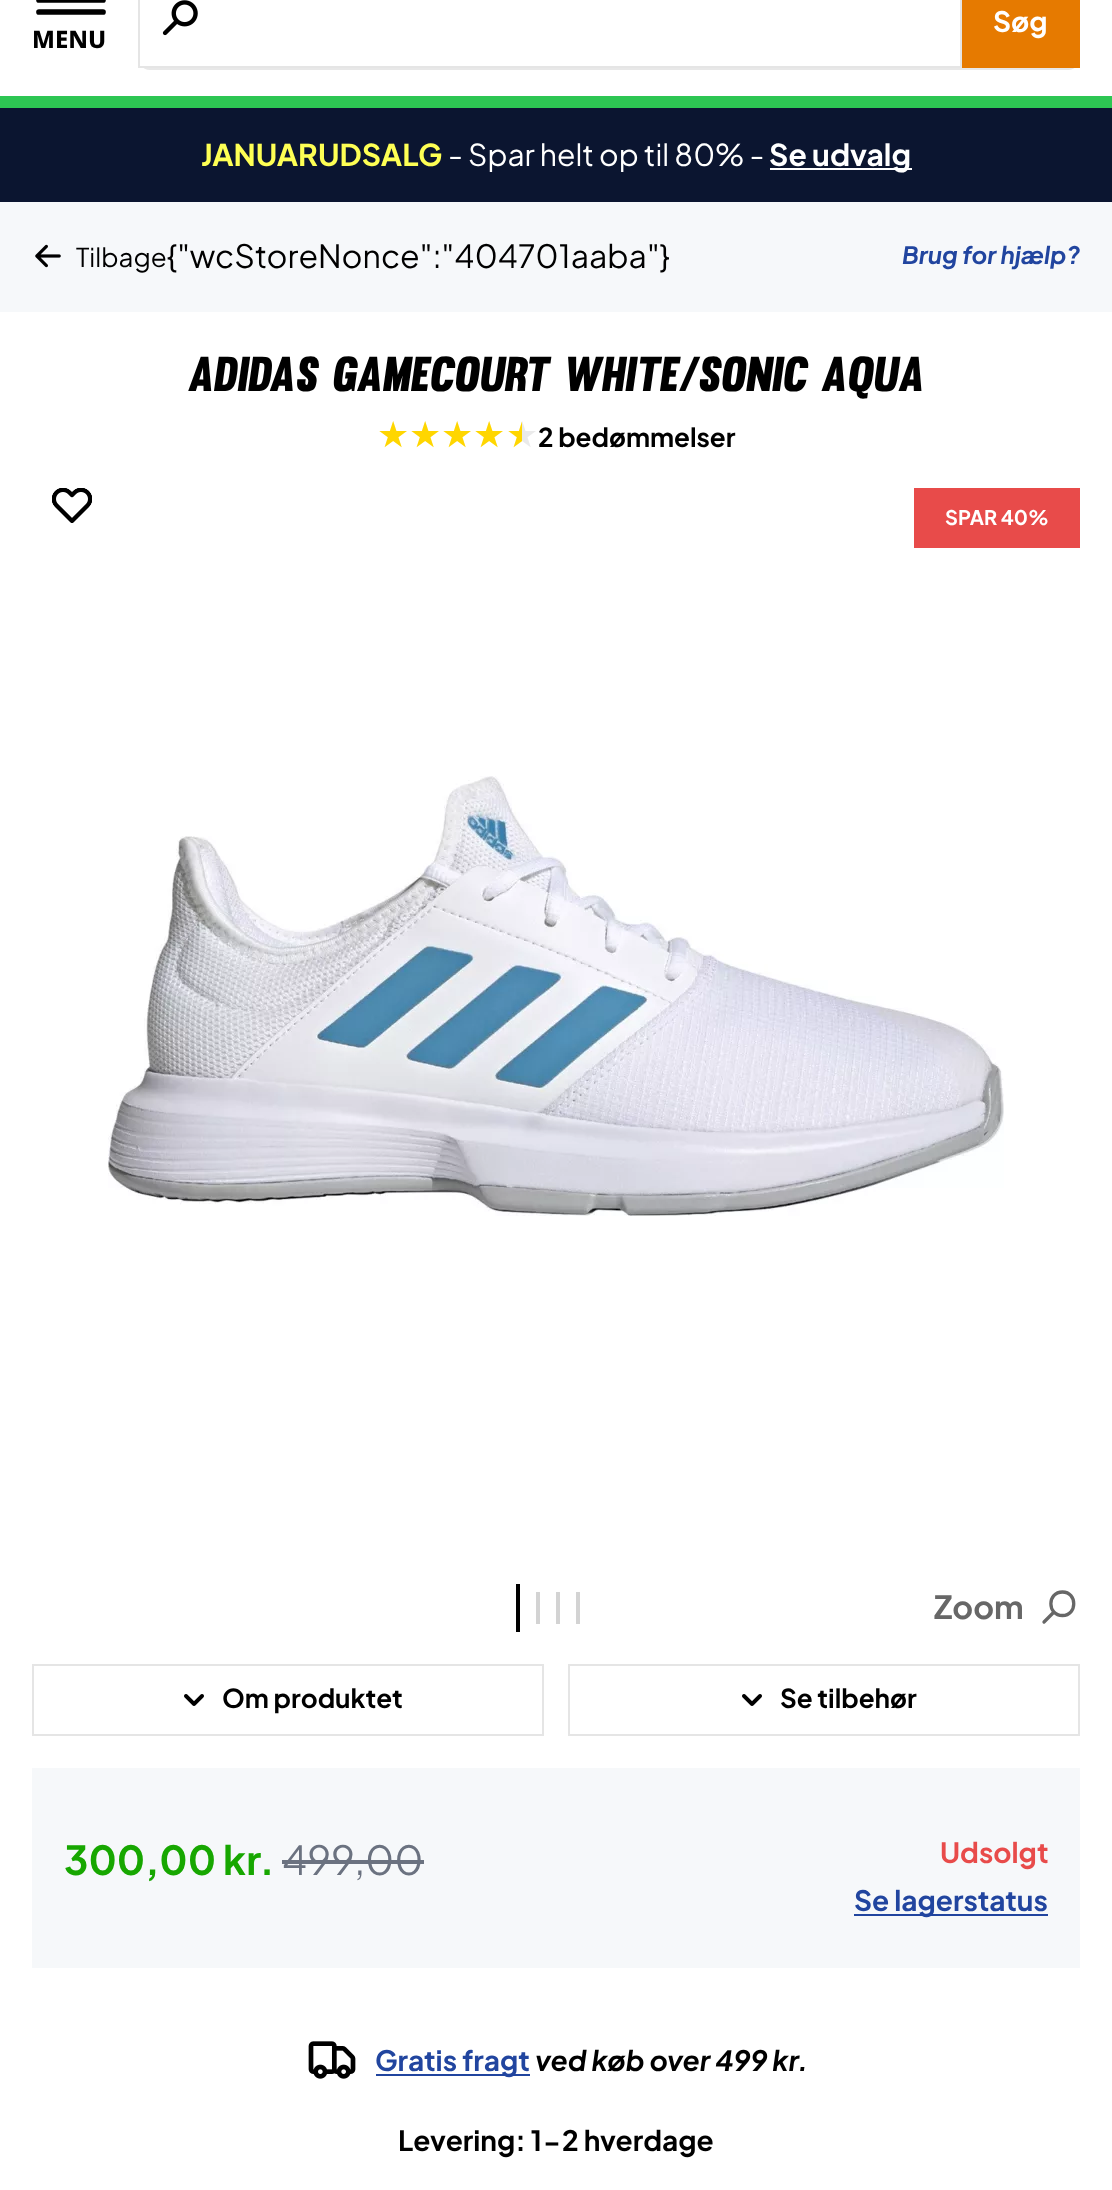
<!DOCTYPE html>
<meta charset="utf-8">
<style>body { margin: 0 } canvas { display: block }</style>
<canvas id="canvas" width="1112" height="2190"></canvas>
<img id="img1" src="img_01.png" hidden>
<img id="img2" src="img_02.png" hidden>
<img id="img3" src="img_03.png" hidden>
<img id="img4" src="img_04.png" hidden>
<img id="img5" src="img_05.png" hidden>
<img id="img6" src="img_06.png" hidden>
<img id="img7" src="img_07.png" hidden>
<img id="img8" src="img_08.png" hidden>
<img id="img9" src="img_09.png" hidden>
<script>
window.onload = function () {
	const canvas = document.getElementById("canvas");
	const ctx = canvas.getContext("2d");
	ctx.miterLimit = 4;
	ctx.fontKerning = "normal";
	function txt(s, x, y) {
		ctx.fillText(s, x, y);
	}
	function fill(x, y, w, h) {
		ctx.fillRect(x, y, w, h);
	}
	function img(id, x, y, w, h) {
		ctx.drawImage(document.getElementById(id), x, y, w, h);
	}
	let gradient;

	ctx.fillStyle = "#FFFFFF";
	fill(0, 0, 1112, 2190);
	ctx.beginPath();
	ctx.moveTo(39, -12);
	ctx.lineTo(103, -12);
	ctx.moveTo(39, 0);
	ctx.lineTo(103, 0);
	ctx.moveTo(39, 12);
	ctx.lineTo(103, 12);
	ctx.strokeStyle = "#000000";
	ctx.lineWidth = 5.7;
	ctx.lineCap = "round";
	ctx.lineJoin = "round";
	ctx.stroke();
	ctx.fillStyle = "#E8E8E8";
	ctx.beginPath();
	ctx.moveTo(138, 56);
	ctx.bezierCurveTo(138, 63, 142, 70, 150, 70);
	ctx.lineTo(1068, 70);
	ctx.bezierCurveTo(1076, 70, 1080, 63, 1080, 56);
	ctx.bezierCurveTo(1080, 63, 1075, 68, 1068, 68);
	ctx.lineTo(150, 68);
	ctx.bezierCurveTo(143, 68, 138, 63, 138, 56);
	ctx.closePath();
	ctx.fill();
	ctx.fillStyle = "#FFFFFF";
	fill(140, 63, 3, 3);
	ctx.strokeStyle = "#E5E5E5";
	ctx.lineWidth = 2;
	ctx.lineJoin = "miter";
	ctx.strokeRect(139, -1, 822, 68);
	img("img1", 162, 0, 36, 36);
	ctx.fillStyle = "#E67A00";
	fill(962, 0, 118, 68);
	ctx.fillStyle = "#2DC653";
	fill(0, 96, 1112, 12);
	ctx.fillStyle = "#0B1530";
	fill(0, 108, 1112, 94);
	ctx.fillStyle = "#FFFFFF";
	fill(770, 168, 142, 2);
	ctx.fillStyle = "#F6F8FA";
	fill(0, 202, 1112, 110);
	img("img2", 35, 244, 26, 24);
	img("img3", 52, 488, 40, 35);
	img("img4", 108, 776, 896, 440);
	img("img5", 52, 488, 40, 35);
	img("img6", 52, 488, 40, 35);
	img("img7", 52, 488, 40, 35);
	ctx.fillStyle = "#E84B4A";
	fill(914, 488, 166, 60);
	ctx.fillStyle = "#000000";
	fill(516, 1584, 4, 48);
	ctx.fillStyle = "#D3D3D3";
	fill(536, 1592, 4, 32);
	fill(556, 1592, 4, 32);
	fill(576, 1592, 4, 32);
	ctx.beginPath();
	ctx.moveTo(1044, 1622);
	ctx.lineTo(1054, 1612);
	ctx.moveTo(1062.5, 1615.5);
	ctx.bezierCurveTo(1047, 1615.5, 1047, 1592, 1062.5, 1592);
	ctx.bezierCurveTo(1077.5, 1592, 1077.5, 1615.5, 1062.5, 1615.5);
	ctx.closePath();
	ctx.strokeStyle = "#676767";
	ctx.lineWidth = 3.3;
	ctx.lineJoin = "round";
	ctx.stroke();
	ctx.strokeStyle = "#E5E5E5";
	ctx.lineWidth = 2;
	ctx.lineJoin = "miter";
	ctx.strokeRect(33, 1665, 510, 70);
	img("img8", 184, 1694, 20, 12);
	ctx.strokeRect(569, 1665, 510, 70);
	img("img8", 742, 1694, 20, 12);
	ctx.fillStyle = "#F6F8FA";
	fill(32, 1768, 1048, 200);
	ctx.fillStyle = "#6B7280";
	fill(282, 1860, 142, 4);
	ctx.fillStyle = "#21459F";
	fill(854, 1914, 194, 2);
	img("img9", 308, 2041, 48, 38);
	fill(376, 2074, 154, 2);
	ctx.font = "800 24px Noto Sans";
	ctx.fillStyle = "#000000";
	txt("MENU", 32, 48);
	ctx.font = "bold 28px Plus Jakarta Sans";
	ctx.fillStyle = "#FFFFFF";
	txt("Søg", 993, 32);
	ctx.font = "bold 30px Plus Jakarta Sans";
	ctx.fillStyle = "#FEFF54";
	txt("JANUARUDSALG", 201, 166);
	ctx.font = "30px Plus Jakarta Sans";
	ctx.fillStyle = "#FFFFFF";
	txt("- Spar helt op til 80% -", 448, 166);
	ctx.font = "bold 30px Plus Jakarta Sans";
	txt("Se udvalg", 769, 166);
	ctx.font = "26px Plus Jakarta Sans";
	ctx.fillStyle = "#000000";
	txt("Tilbage", 76, 267);
	ctx.font = "32px Plus Jakarta Sans";
	txt("{\"wcStoreNonce\":\"404701aaba\"}", 167, 268);
	ctx.font = "italic bold 24px Plus Jakarta Sans";
	ctx.fillStyle = "#21459F";
	txt("Brug for hjælp?", 902, 264);
	ctx.font = "italic 48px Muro";
	ctx.fillStyle = "#000000";
	txt("Adidas GameCourt White/Sonic Aqua", 188, 391);
	ctx.font = "36px DejaVu Sans";
	gradient = ctx.createLinearGradient(377, 435, 409, 435);
	gradient.addColorStop(1, "#FFD600");
	gradient.addColorStop(1, "#EAEAEA");
	ctx.fillStyle = gradient;
	txt("★", 377, 447);
	gradient = ctx.createLinearGradient(409, 435, 441, 435);
	gradient.addColorStop(1, "#FFD600");
	gradient.addColorStop(1, "#EAEAEA");
	ctx.fillStyle = gradient;
	txt("★", 409, 447);
	gradient = ctx.createLinearGradient(441, 435, 473, 435);
	gradient.addColorStop(1, "#FFD600");
	gradient.addColorStop(1, "#EAEAEA");
	ctx.fillStyle = gradient;
	txt("★", 441, 447);
	gradient = ctx.createLinearGradient(473, 435, 506, 435);
	gradient.addColorStop(1, "#FFD600");
	gradient.addColorStop(1, "#EAEAEA");
	ctx.fillStyle = gradient;
	txt("★", 473, 447);
	gradient = ctx.createLinearGradient(506, 435, 538, 435);
	gradient.addColorStop(0.5, "#FFD600");
	gradient.addColorStop(0.5, "#EAEAEA");
	ctx.fillStyle = gradient;
	txt("★", 506, 447);
	ctx.font = "bold 26px Plus Jakarta Sans";
	ctx.fillStyle = "#000000";
	txt("2 bedømmelser", 538, 447);
	ctx.font = "bold 20px Plus Jakarta Sans";
	ctx.fillStyle = "#FFFFFF";
	txt("SPAR 40%", 945, 525);
	ctx.font = "bold 32px Plus Jakarta Sans";
	ctx.fillStyle = "#676767";
	txt("Zoom", 934, 1619);
	ctx.font = "bold 26px Plus Jakarta Sans";
	ctx.fillStyle = "#000000";
	txt("Om produktet", 222, 1708);
	txt("Se tilbehør", 780, 1708);
	ctx.font = "bold 40px Plus Jakarta Sans";
	ctx.fillStyle = "#17A700";
	txt("300,00 kr.", 64, 1875);
	ctx.font = "40px Plus Jakarta Sans";
	ctx.fillStyle = "#6B7280";
	txt("499,00", 282, 1875);
	ctx.font = "bold 28px Plus Jakarta Sans";
	ctx.fillStyle = "#E84B4A";
	txt("Udsolgt", 940, 1863);
	ctx.fillStyle = "#21459F";
	txt("Se lagerstatus", 854, 1911);
	txt("Gratis fragt", 375, 2071);
	ctx.font = "italic bold 28px Plus Jakarta Sans";
	ctx.fillStyle = "#000000";
	txt("ved køb over 499 kr.", 535, 2071);
	ctx.font = "bold 28px Plus Jakarta Sans";
	txt("Levering: 1-2 hverdage", 398, 2151);
};
</script>
